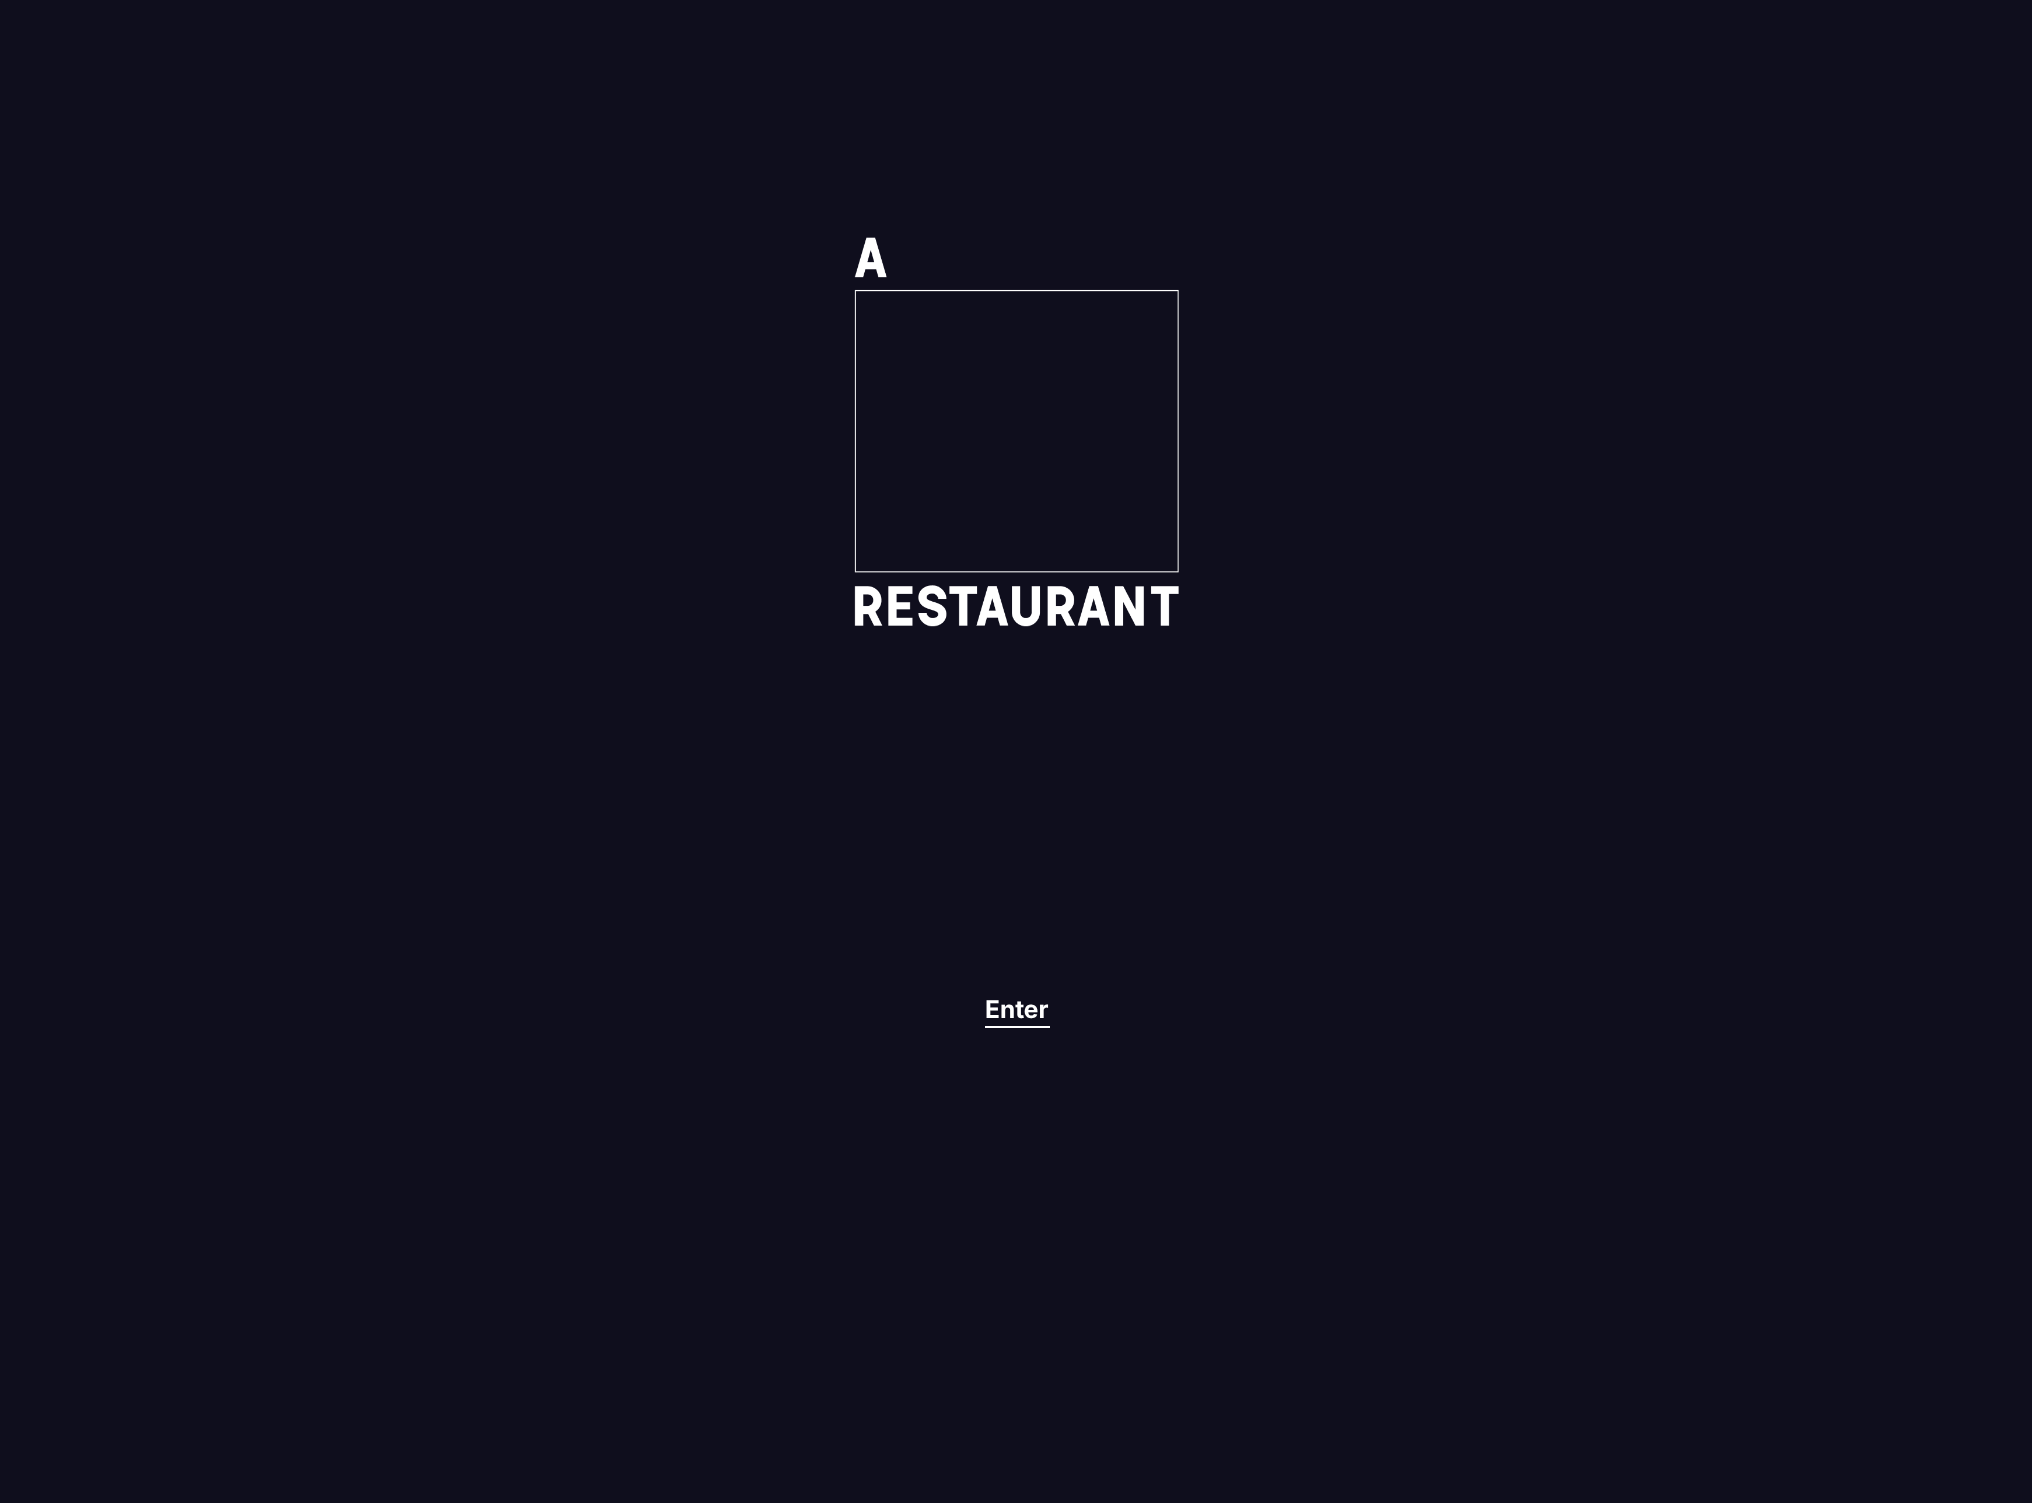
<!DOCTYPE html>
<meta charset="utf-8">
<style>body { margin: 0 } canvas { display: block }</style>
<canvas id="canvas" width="2032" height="1503"></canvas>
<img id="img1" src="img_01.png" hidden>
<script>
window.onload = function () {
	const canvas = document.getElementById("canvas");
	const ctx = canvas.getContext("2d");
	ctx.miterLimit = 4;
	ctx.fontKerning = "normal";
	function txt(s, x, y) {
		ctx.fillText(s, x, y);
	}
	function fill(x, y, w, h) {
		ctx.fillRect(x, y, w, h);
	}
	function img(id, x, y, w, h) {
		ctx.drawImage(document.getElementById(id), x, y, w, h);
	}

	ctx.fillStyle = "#0F0E1D";
	fill(0, 0, 2032, 1503);
	img("img1", 854, 237, 325, 390);
	ctx.fillStyle = "#FFFFFF";
	fill(985, 1026, 65, 2);
	ctx.font = "bold 24.5px Inter";
	txt("Enter", 985, 1018);
};
</script>
